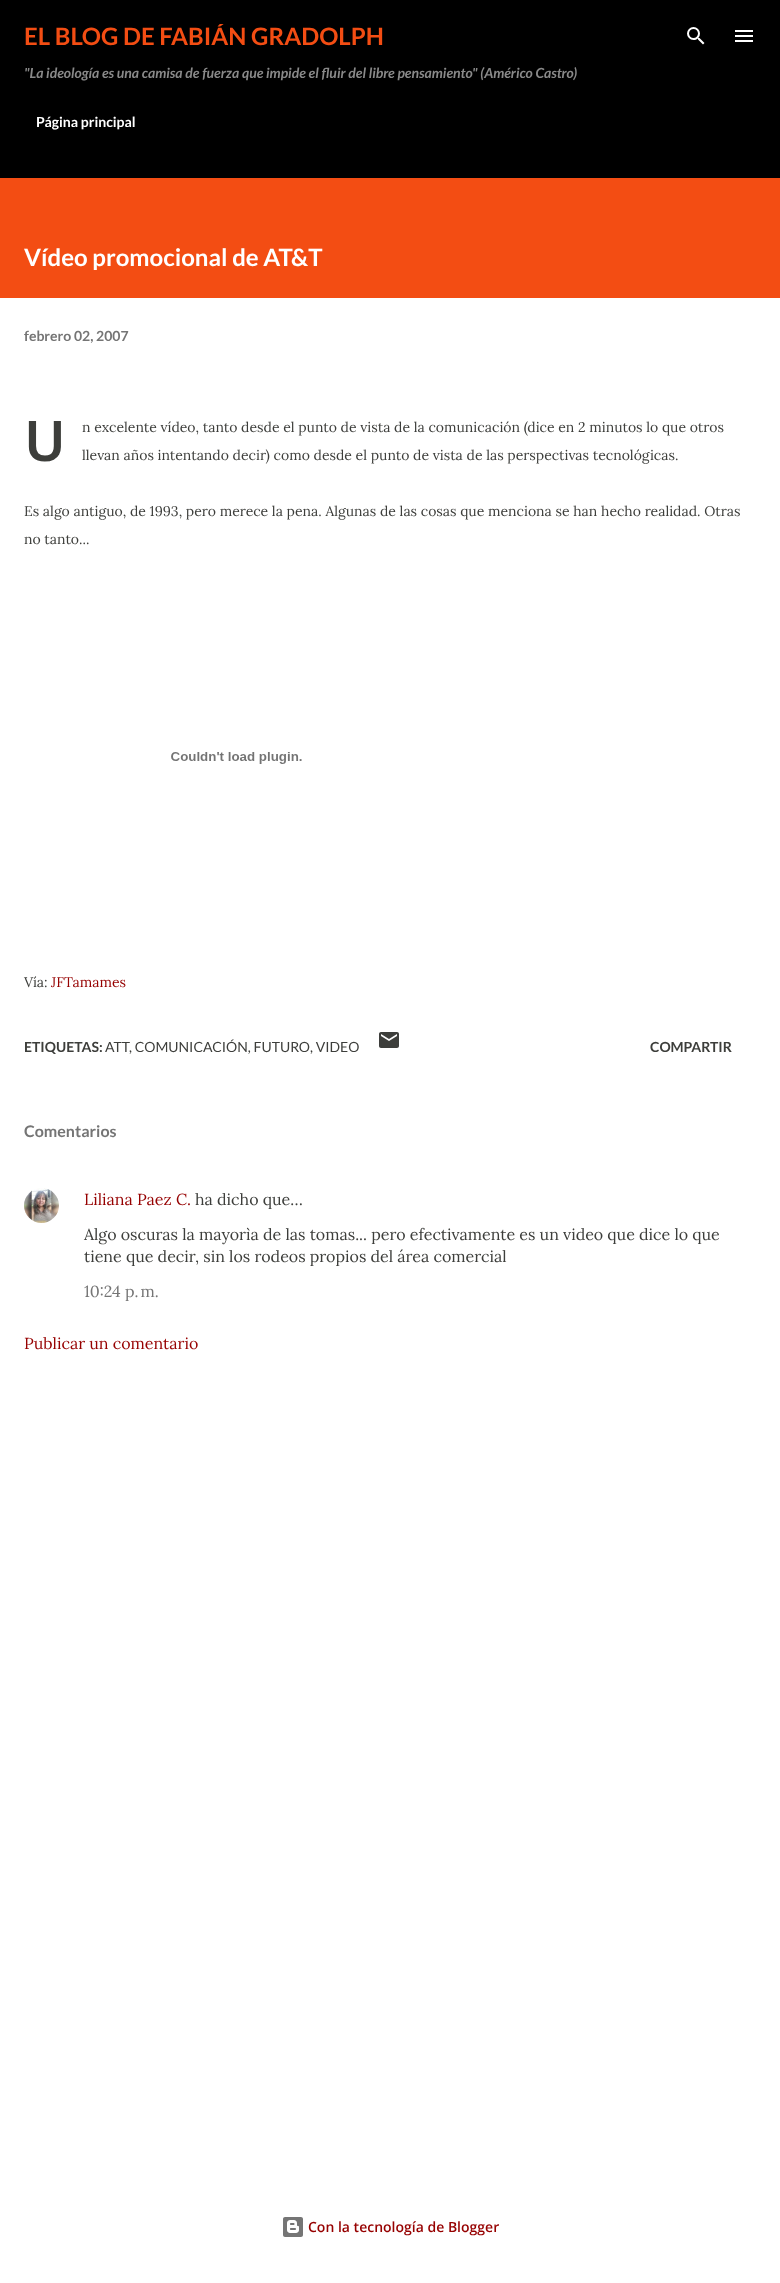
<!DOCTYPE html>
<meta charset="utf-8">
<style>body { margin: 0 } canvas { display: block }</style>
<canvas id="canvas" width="780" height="2283"></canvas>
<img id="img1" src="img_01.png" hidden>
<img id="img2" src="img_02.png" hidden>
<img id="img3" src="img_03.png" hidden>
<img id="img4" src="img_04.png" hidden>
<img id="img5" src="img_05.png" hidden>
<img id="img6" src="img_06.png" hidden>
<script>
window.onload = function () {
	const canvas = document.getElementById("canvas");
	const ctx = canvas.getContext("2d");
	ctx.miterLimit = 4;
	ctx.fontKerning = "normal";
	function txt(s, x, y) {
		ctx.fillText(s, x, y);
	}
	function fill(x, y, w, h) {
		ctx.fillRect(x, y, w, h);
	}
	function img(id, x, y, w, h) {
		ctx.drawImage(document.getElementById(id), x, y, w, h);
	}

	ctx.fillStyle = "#FFFFFF";
	fill(0, 0, 780, 2283);
	ctx.fillStyle = "#000000";
	fill(0, 0, 780, 178);
	img("img1", 687, 27, 18, 18);
	img("img2", 735, 30, 18, 12);
	ctx.fillStyle = "#F34D13";
	fill(0, 178, 780, 120);
	img("img3", 171, 752, 131, 12);
	img("img4", 379, 1032, 20, 16);
	img("img5", 24, 1188, 35, 35);
	img("img6", 283, 2217, 20, 20);
	ctx.save();
	ctx.beginPath();
	ctx.rect(24, 24, 684, 74);
	ctx.clip();
	ctx.font = "bold 24px Lato";
	txt("EL BLOG DE FABIÁN GRADOLPH", 24, 45);
	ctx.restore();
	ctx.font = "italic bold 14px Lato";
	ctx.fillStyle = "#898989";
	txt("\"La ideología es una camisa de fuerza que impide el fluir del libre pensamiento\" (Américo Castro)", 24, 78);
	ctx.font = "bold 14px Lato";
	ctx.fillStyle = "#FFFFFF";
	txt("Página principal", 36, 127);
	ctx.font = "bold 24px Lato";
	txt("Vídeo promocional de AT&T", 24, 266);
	ctx.font = "bold 14px Lato";
	ctx.fillStyle = "#757575";
	txt("febrero 02, 2007", 24, 341);
	ctx.font = "600 56px Noto Sans";
	ctx.fillStyle = "#3D3E3B";
	txt("U", 24, 461);
	ctx.font = "14px Lora";
	txt("n excelente vídeo, tanto desde el punto de vista de la comunicación (dice en 2 minutos lo que otros", 82, 432);
	txt("llevan años intentando decir) como desde el punto de vista de las perspectivas tecnológicas.", 82, 460);
	txt("Es algo antiguo, de 1993, pero merece la pena. Algunas de las cosas que menciona se han hecho realidad. Otras", 24, 516);
	txt("no tanto...", 24, 544);
	txt("Vía:", 24, 987);
	ctx.fillStyle = "#960100";
	txt("JFTamames", 51, 987);
	ctx.font = "bold 14px Lato";
	ctx.fillStyle = "#3D3E3B";
	txt("ETIQUETAS:", 24, 1052);
	ctx.font = "14px Lato";
	txt("ATT", 105, 1052);
	txt(", COMUNICACIÓN, FUTURO", 129, 1052);
	txt(", VIDEO", 310, 1052);
	ctx.font = "bold 14px Lato";
	txt("COMPARTIR", 650, 1052);
	ctx.font = "bold 16px Lato";
	ctx.fillStyle = "#757575";
	txt("Comentarios", 24, 1137);
	ctx.font = "16px Lora";
	ctx.fillStyle = "#960100";
	txt("Liliana Paez C.", 84, 1205);
	ctx.fillStyle = "#3D3E3B";
	txt("ha dicho que…", 195, 1205);
	txt("Algo oscuras la mayorìa de las tomas... pero efectivamente es un video que dice lo que", 84, 1240);
	txt("tiene que decir, sin los rodeos propios del área comercial", 84, 1262);
	ctx.fillStyle = "#757575";
	txt("10:24 p. m.", 84, 1297);
	ctx.fillStyle = "#960100";
	txt("Publicar un comentario", 24, 1349);
	ctx.font = "600 14px Open Sans";
	txt("Con la tecnología de Blogger", 308, 2232);
};
</script>
